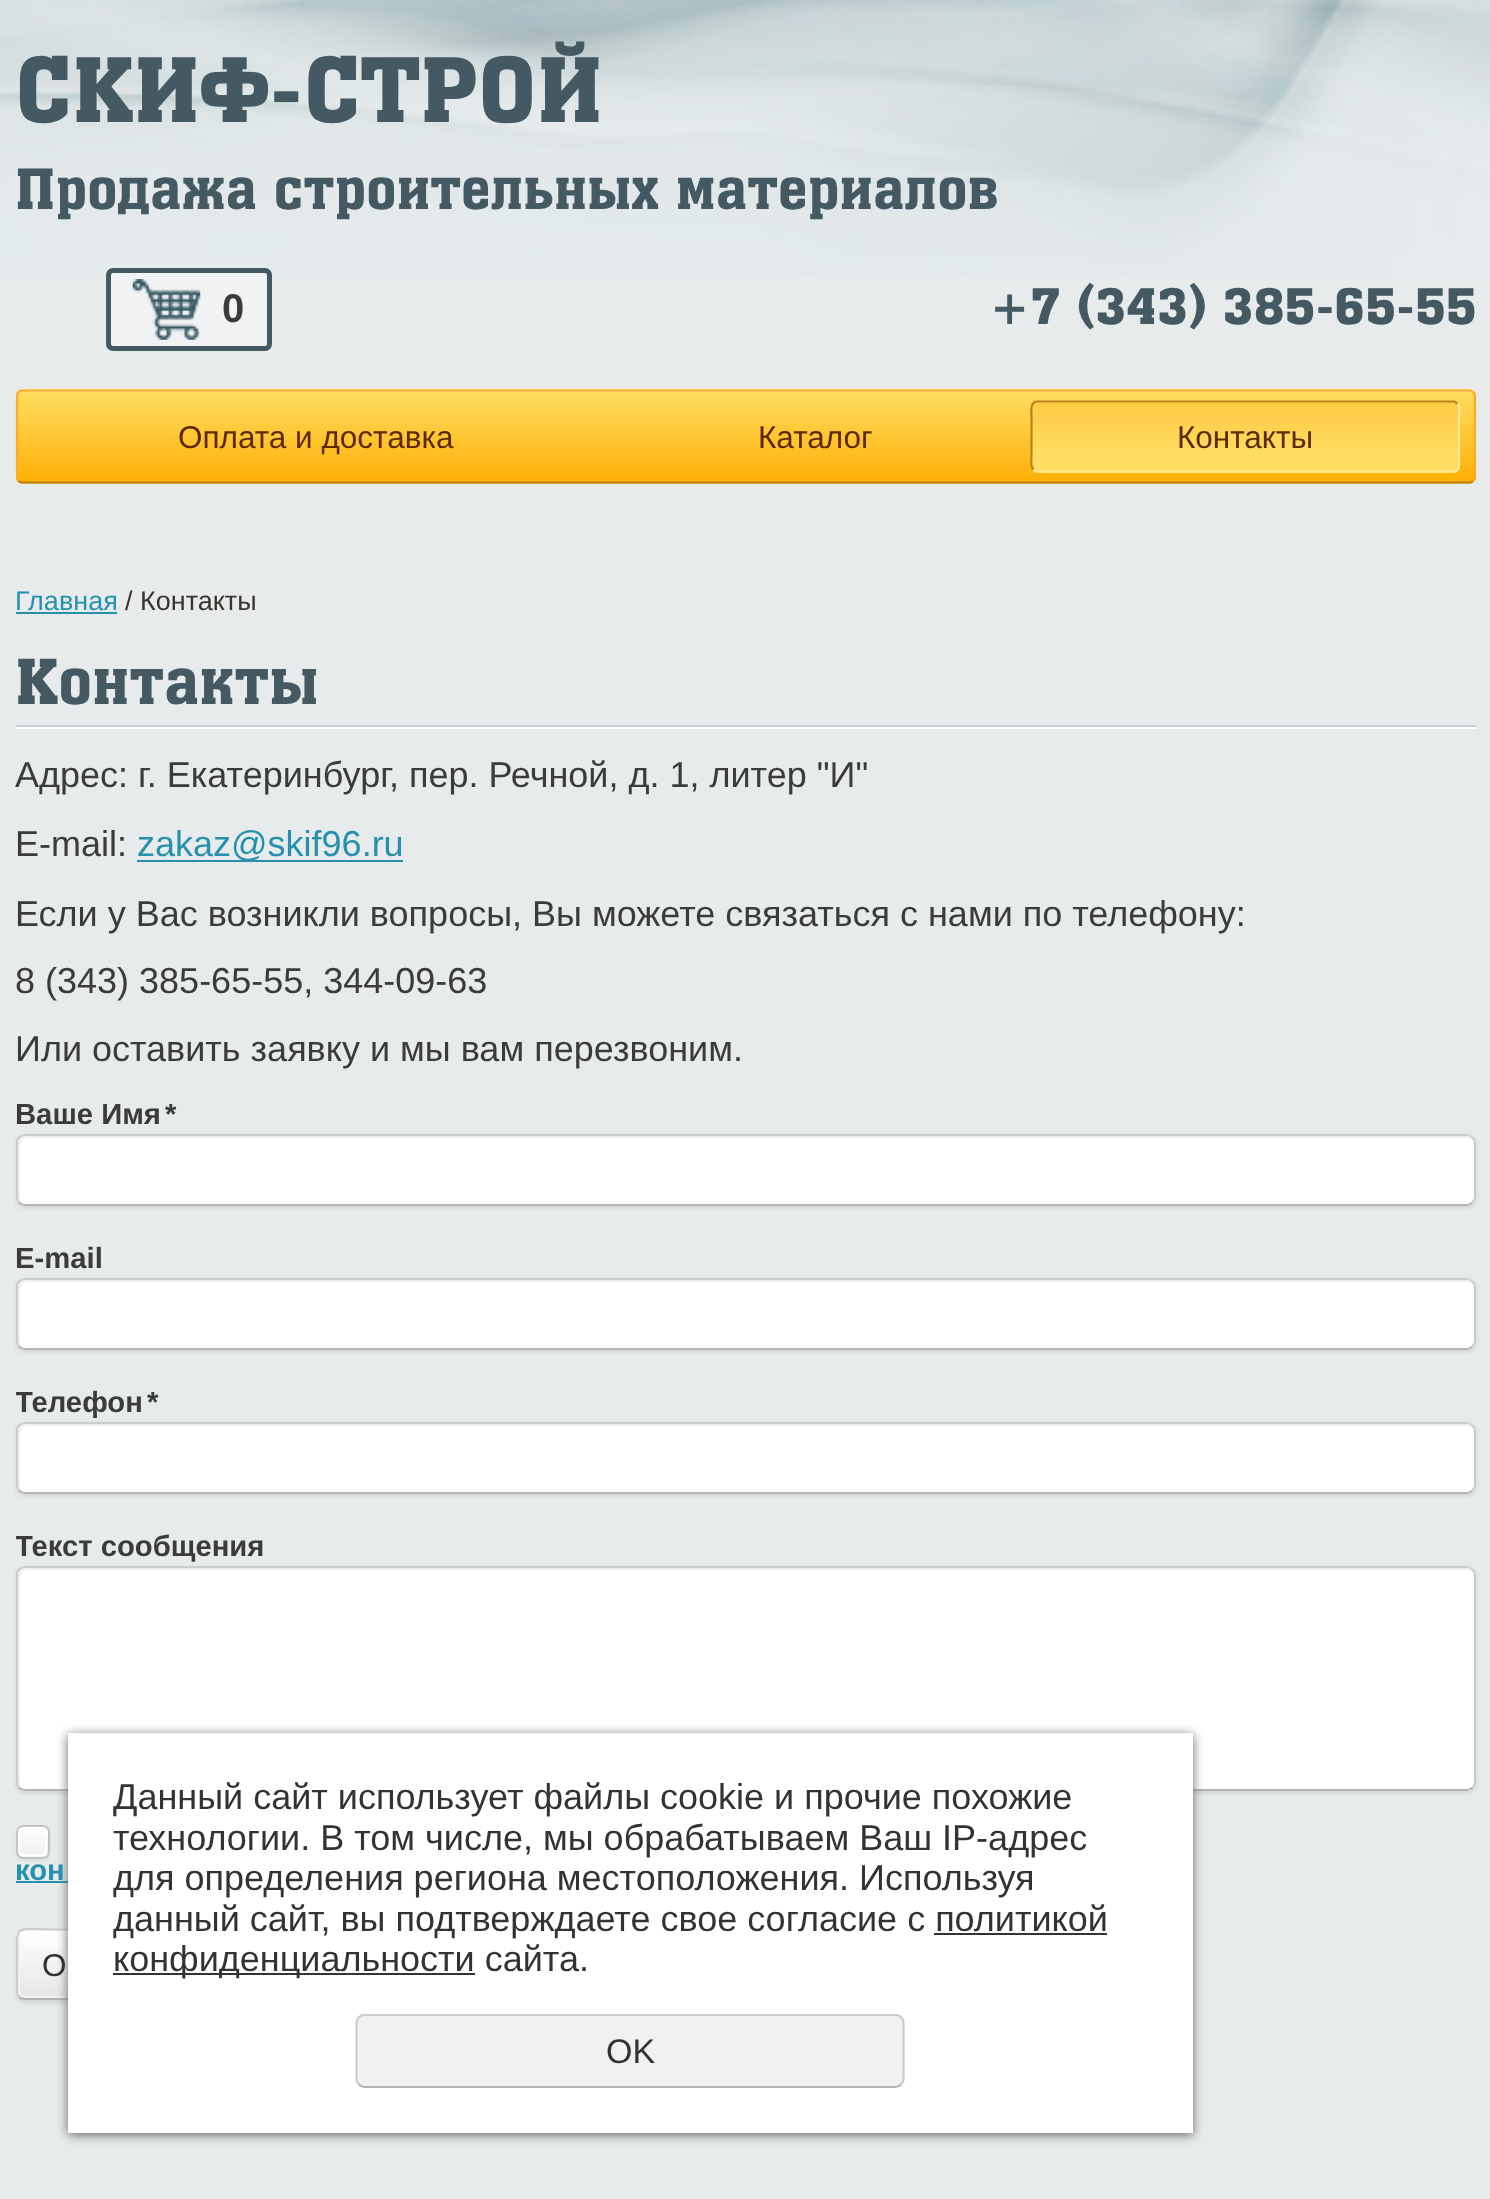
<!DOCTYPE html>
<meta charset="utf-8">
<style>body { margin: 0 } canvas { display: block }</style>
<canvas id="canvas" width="1490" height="2199"></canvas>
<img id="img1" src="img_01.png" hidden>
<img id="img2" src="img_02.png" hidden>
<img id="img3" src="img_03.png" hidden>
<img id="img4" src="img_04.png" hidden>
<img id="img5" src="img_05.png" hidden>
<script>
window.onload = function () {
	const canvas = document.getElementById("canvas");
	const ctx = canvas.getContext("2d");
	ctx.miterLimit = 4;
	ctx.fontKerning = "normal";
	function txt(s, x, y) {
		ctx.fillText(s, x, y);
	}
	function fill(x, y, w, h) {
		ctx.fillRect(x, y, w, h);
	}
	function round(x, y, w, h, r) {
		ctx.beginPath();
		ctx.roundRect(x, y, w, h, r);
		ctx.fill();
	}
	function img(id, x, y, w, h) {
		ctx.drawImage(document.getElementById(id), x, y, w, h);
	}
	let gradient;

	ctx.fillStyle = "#E7EBEC";
	fill(0, 0, 1490, 2199);
	img("img1", 0, 0, 1490, 277);
	ctx.fillStyle = "#F0F2F3";
	ctx.beginPath();
	ctx.roundRect(108.5, 270.5, 161, 78, 4.5);
	ctx.fill();
	ctx.strokeStyle = "#455963";
	ctx.lineWidth = 5;
	ctx.stroke();
	img("img2", 132, 279, 69, 61);
	gradient = ctx.createLinearGradient(746, 389, 746, 484);
	gradient.addColorStop(0, "#FFDE62");
	gradient.addColorStop(1, "#FFAF04");
	ctx.fillStyle = gradient;
	round(16, 389, 1460, 95, 7);
	ctx.fillStyle = "#FFC849";
	ctx.beginPath();
	ctx.moveTo(16, 475);
	ctx.lineTo(16, 477);
	ctx.bezierCurveTo(16, 481, 19, 484, 23, 484);
	ctx.lineTo(1469, 484);
	ctx.bezierCurveTo(1473, 484, 1476, 481, 1476, 477);
	ctx.lineTo(1476, 475);
	ctx.bezierCurveTo(1476, 478, 1473, 482, 1469, 482);
	ctx.lineTo(22, 482);
	ctx.bezierCurveTo(19, 482, 16, 478, 16, 475);
	ctx.closePath();
	ctx.fill();
	ctx.fillStyle = "#FFE991";
	ctx.beginPath();
	ctx.moveTo(22, 392);
	ctx.lineTo(1469, 392);
	ctx.bezierCurveTo(1473, 392, 1476, 395, 1476, 398);
	ctx.lineTo(1476, 396);
	ctx.bezierCurveTo(1476, 392, 1473, 389, 1469, 389);
	ctx.lineTo(23, 389);
	ctx.bezierCurveTo(19, 389, 16, 392, 16, 396);
	ctx.lineTo(16, 398);
	ctx.bezierCurveTo(16, 395, 19, 392, 22, 392);
	ctx.closePath();
	ctx.fill();
	ctx.beginPath();
	ctx.moveTo(1473, 481);
	ctx.bezierCurveTo(1472, 482, 1470.5, 482.5, 1469, 482.5);
	ctx.lineTo(22.5, 482.5);
	ctx.bezierCurveTo(21, 482.5, 19.5, 482, 18.5, 481);
	ctx.strokeStyle = "#BE801D";
	ctx.lineWidth = 2.2;
	ctx.stroke();
	ctx.beginPath();
	ctx.moveTo(18.5, 481);
	ctx.bezierCurveTo(17.5, 480, 17, 478.5, 17, 477);
	ctx.lineTo(17, 396);
	ctx.bezierCurveTo(17, 394.5, 17.5, 393, 18.5, 392);
	ctx.bezierCurveTo(19.5, 391, 21, 390.5, 22.5, 390.5);
	ctx.lineTo(1469, 390.5);
	ctx.bezierCurveTo(1470.5, 390.5, 1472, 391, 1473, 392);
	ctx.bezierCurveTo(1474.5, 393, 1475, 394.5, 1475, 396);
	ctx.lineTo(1475, 477);
	ctx.bezierCurveTo(1475, 478.5, 1474.5, 480, 1473, 481);
	ctx.strokeStyle = "#FFAA24";
	ctx.stroke();
	ctx.fillStyle = "#FFDE61";
	round(1031, 401, 429, 72, 7);
	img("img3", 1030, 402, 431, 60);
	ctx.beginPath();
	ctx.moveTo(1457.5, 403.5);
	ctx.bezierCurveTo(1460.5, 406.5, 1459, 414, 1459, 417);
	ctx.lineTo(1459, 456);
	ctx.bezierCurveTo(1459, 460, 1461, 471.5, 1453.5, 471.5);
	ctx.lineTo(1036, 471.5);
	ctx.lineTo(1033.5, 469.5);
	ctx.strokeStyle = "#FFE895";
	ctx.stroke();
	ctx.beginPath();
	ctx.moveTo(1033.5, 469.5);
	ctx.bezierCurveTo(1030, 466.5, 1031.5, 459, 1031.5, 456);
	ctx.lineTo(1031.5, 417);
	ctx.bezierCurveTo(1031.5, 413, 1029.5, 401.5, 1037, 401.5);
	ctx.lineTo(1454.5, 401.5);
	ctx.lineTo(1457.5, 403.5);
	ctx.strokeStyle = "#BE801D";
	ctx.stroke();
	ctx.fillStyle = "#2591AD";
	fill(16, 612, 101, 2);
	ctx.fillStyle = "#FFFFFF";
	fill(16, 727, 1460, 2);
	ctx.fillStyle = "#C7CED1";
	fill(16, 725, 1460, 2);
	ctx.fillStyle = "#2591AD";
	fill(137, 860, 266, 2);
	ctx.save();
	ctx.beginPath();
	ctx.moveTo(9, 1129);
	ctx.lineTo(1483, 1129);
	ctx.lineTo(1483, 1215);
	ctx.lineTo(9, 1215);
	ctx.closePath();
	ctx.moveTo(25, 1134);
	ctx.lineTo(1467, 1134);
	ctx.bezierCurveTo(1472, 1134, 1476, 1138, 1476, 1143);
	ctx.lineTo(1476, 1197);
	ctx.bezierCurveTo(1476, 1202, 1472, 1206, 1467, 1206);
	ctx.lineTo(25, 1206);
	ctx.bezierCurveTo(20, 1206, 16, 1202, 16, 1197);
	ctx.lineTo(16, 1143);
	ctx.bezierCurveTo(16, 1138, 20, 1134, 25, 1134);
	ctx.closePath();
	ctx.clip("evenodd");
	ctx.fillStyle = "rgba(0, 0, 0, 0.1)";
	ctx.filter = "blur(2px)";
	ctx.beginPath();
	ctx.roundRect(16, 1136, 1460, 72, 9);
	ctx.fill();
	ctx.filter = "none";
	ctx.restore();
	ctx.fillStyle = "#FFFFFF";
	round(16, 1134, 1460, 72, 9);
	ctx.fillStyle = "#F1F1F1";
	ctx.beginPath();
	ctx.moveTo(27, 1138);
	ctx.lineTo(1469, 1138);
	ctx.bezierCurveTo(1471, 1138, 1472, 1139, 1473, 1139);
	ctx.bezierCurveTo(1472, 1137, 1470, 1136, 1467, 1136);
	ctx.lineTo(25, 1136);
	ctx.bezierCurveTo(21, 1136, 18, 1139, 18, 1143);
	ctx.lineTo(18, 1197);
	ctx.bezierCurveTo(18, 1199, 19, 1202, 21, 1203);
	ctx.bezierCurveTo(20, 1202, 20, 1200, 20, 1199);
	ctx.lineTo(20, 1145);
	ctx.bezierCurveTo(20, 1142, 23, 1138, 27, 1138);
	ctx.closePath();
	ctx.fill();
	ctx.beginPath();
	ctx.moveTo(1472.5, 1202.5);
	ctx.bezierCurveTo(1471, 1204, 1469, 1205, 1467, 1205);
	ctx.lineTo(25, 1205);
	ctx.bezierCurveTo(22.5, 1205, 20.5, 1204, 19, 1202.5);
	ctx.strokeStyle = "#B3B3B3";
	ctx.stroke();
	ctx.save();
	ctx.beginPath();
	ctx.rect(16, 585, 1460, 1465);
	ctx.clip();
	ctx.beginPath();
	ctx.moveTo(19, 1202.5);
	ctx.bezierCurveTo(17.5, 1201, 17, 1199, 17, 1197);
	ctx.lineTo(17, 1143);
	ctx.bezierCurveTo(17, 1141, 17.5, 1139, 19, 1137.5);
	ctx.bezierCurveTo(20.5, 1136, 22.5, 1135, 25, 1135);
	ctx.lineTo(1467, 1135);
	ctx.bezierCurveTo(1469, 1135, 1471, 1136, 1472.5, 1137.5);
	ctx.bezierCurveTo(1474, 1139, 1475, 1141, 1475, 1143);
	ctx.lineTo(1475, 1197);
	ctx.bezierCurveTo(1475, 1199, 1474, 1201, 1472.5, 1202.5);
	ctx.strokeStyle = "#CCCCCC";
	ctx.stroke();
	ctx.restore();
	ctx.save();
	ctx.beginPath();
	ctx.moveTo(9, 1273);
	ctx.lineTo(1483, 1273);
	ctx.lineTo(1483, 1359);
	ctx.lineTo(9, 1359);
	ctx.closePath();
	ctx.moveTo(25, 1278);
	ctx.lineTo(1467, 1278);
	ctx.bezierCurveTo(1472, 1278, 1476, 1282, 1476, 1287);
	ctx.lineTo(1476, 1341);
	ctx.bezierCurveTo(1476, 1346, 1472, 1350, 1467, 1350);
	ctx.lineTo(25, 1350);
	ctx.bezierCurveTo(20, 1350, 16, 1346, 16, 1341);
	ctx.lineTo(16, 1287);
	ctx.bezierCurveTo(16, 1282, 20, 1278, 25, 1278);
	ctx.closePath();
	ctx.clip("evenodd");
	ctx.fillStyle = "rgba(0, 0, 0, 0.1)";
	ctx.filter = "blur(2px)";
	ctx.beginPath();
	ctx.roundRect(16, 1280, 1460, 72, 9);
	ctx.fill();
	ctx.filter = "none";
	ctx.restore();
	ctx.fillStyle = "#FFFFFF";
	round(16, 1278, 1460, 72, 9);
	ctx.fillStyle = "#F1F1F1";
	ctx.beginPath();
	ctx.moveTo(27, 1282);
	ctx.lineTo(1469, 1282);
	ctx.bezierCurveTo(1471, 1282, 1472, 1283, 1473, 1283);
	ctx.bezierCurveTo(1472, 1281, 1470, 1280, 1467, 1280);
	ctx.lineTo(25, 1280);
	ctx.bezierCurveTo(21, 1280, 18, 1283, 18, 1287);
	ctx.lineTo(18, 1341);
	ctx.bezierCurveTo(18, 1343, 19, 1346, 21, 1347);
	ctx.bezierCurveTo(20, 1346, 20, 1344, 20, 1343);
	ctx.lineTo(20, 1289);
	ctx.bezierCurveTo(20, 1286, 23, 1282, 27, 1282);
	ctx.closePath();
	ctx.fill();
	ctx.beginPath();
	ctx.moveTo(1472.5, 1346.5);
	ctx.bezierCurveTo(1471, 1348, 1469, 1349, 1467, 1349);
	ctx.lineTo(25, 1349);
	ctx.bezierCurveTo(22.5, 1349, 20.5, 1348, 19, 1346.5);
	ctx.stroke();
	ctx.save();
	ctx.beginPath();
	ctx.rect(16, 585, 1460, 1465);
	ctx.clip();
	ctx.beginPath();
	ctx.moveTo(19, 1346.5);
	ctx.bezierCurveTo(17.5, 1345, 17, 1343, 17, 1341);
	ctx.lineTo(17, 1287);
	ctx.bezierCurveTo(17, 1285, 17.5, 1283, 19, 1281.5);
	ctx.bezierCurveTo(20.5, 1280, 22.5, 1279, 25, 1279);
	ctx.lineTo(1467, 1279);
	ctx.bezierCurveTo(1469, 1279, 1471, 1280, 1472.5, 1281.5);
	ctx.bezierCurveTo(1474, 1283, 1475, 1285, 1475, 1287);
	ctx.lineTo(1475, 1341);
	ctx.bezierCurveTo(1475, 1343, 1474, 1345, 1472.5, 1346.5);
	ctx.strokeStyle = "#CCCCCC";
	ctx.stroke();
	ctx.restore();
	ctx.save();
	ctx.beginPath();
	ctx.moveTo(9, 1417);
	ctx.lineTo(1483, 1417);
	ctx.lineTo(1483, 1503);
	ctx.lineTo(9, 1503);
	ctx.closePath();
	ctx.moveTo(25, 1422);
	ctx.lineTo(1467, 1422);
	ctx.bezierCurveTo(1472, 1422, 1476, 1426, 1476, 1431);
	ctx.lineTo(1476, 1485);
	ctx.bezierCurveTo(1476, 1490, 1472, 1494, 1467, 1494);
	ctx.lineTo(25, 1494);
	ctx.bezierCurveTo(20, 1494, 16, 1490, 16, 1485);
	ctx.lineTo(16, 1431);
	ctx.bezierCurveTo(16, 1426, 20, 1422, 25, 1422);
	ctx.closePath();
	ctx.clip("evenodd");
	ctx.fillStyle = "rgba(0, 0, 0, 0.1)";
	ctx.filter = "blur(2px)";
	ctx.beginPath();
	ctx.roundRect(16, 1424, 1460, 72, 9);
	ctx.fill();
	ctx.filter = "none";
	ctx.restore();
	ctx.fillStyle = "#FFFFFF";
	round(16, 1422, 1460, 72, 9);
	ctx.fillStyle = "#F1F1F1";
	ctx.beginPath();
	ctx.moveTo(27, 1426);
	ctx.lineTo(1469, 1426);
	ctx.bezierCurveTo(1471, 1426, 1472, 1427, 1473, 1427);
	ctx.bezierCurveTo(1472, 1425, 1470, 1424, 1467, 1424);
	ctx.lineTo(25, 1424);
	ctx.bezierCurveTo(21, 1424, 18, 1427, 18, 1431);
	ctx.lineTo(18, 1485);
	ctx.bezierCurveTo(18, 1487, 19, 1490, 21, 1491);
	ctx.bezierCurveTo(20, 1490, 20, 1488, 20, 1487);
	ctx.lineTo(20, 1433);
	ctx.bezierCurveTo(20, 1430, 23, 1426, 27, 1426);
	ctx.closePath();
	ctx.fill();
	ctx.beginPath();
	ctx.moveTo(1472.5, 1490.5);
	ctx.bezierCurveTo(1471, 1492, 1469, 1493, 1467, 1493);
	ctx.lineTo(25, 1493);
	ctx.bezierCurveTo(22.5, 1493, 20.5, 1492, 19, 1490.5);
	ctx.stroke();
	ctx.save();
	ctx.beginPath();
	ctx.rect(16, 585, 1460, 1465);
	ctx.clip();
	ctx.beginPath();
	ctx.moveTo(19, 1490.5);
	ctx.bezierCurveTo(17.5, 1489, 17, 1487, 17, 1485);
	ctx.lineTo(17, 1431);
	ctx.bezierCurveTo(17, 1429, 17.5, 1427, 19, 1425.5);
	ctx.bezierCurveTo(20.5, 1424, 22.5, 1423, 25, 1423);
	ctx.lineTo(1467, 1423);
	ctx.bezierCurveTo(1469, 1423, 1471, 1424, 1472.5, 1425.5);
	ctx.bezierCurveTo(1474, 1427, 1475, 1429, 1475, 1431);
	ctx.lineTo(1475, 1485);
	ctx.bezierCurveTo(1475, 1487, 1474, 1489, 1472.5, 1490.5);
	ctx.strokeStyle = "#CCCCCC";
	ctx.stroke();
	ctx.restore();
	ctx.save();
	ctx.beginPath();
	ctx.moveTo(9, 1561);
	ctx.lineTo(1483, 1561);
	ctx.lineTo(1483, 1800);
	ctx.lineTo(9, 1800);
	ctx.closePath();
	ctx.moveTo(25, 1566);
	ctx.lineTo(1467, 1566);
	ctx.bezierCurveTo(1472, 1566, 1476, 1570, 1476, 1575);
	ctx.lineTo(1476, 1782);
	ctx.bezierCurveTo(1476, 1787, 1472, 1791, 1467, 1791);
	ctx.lineTo(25, 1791);
	ctx.bezierCurveTo(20, 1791, 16, 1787, 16, 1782);
	ctx.lineTo(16, 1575);
	ctx.bezierCurveTo(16, 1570, 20, 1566, 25, 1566);
	ctx.closePath();
	ctx.clip("evenodd");
	ctx.fillStyle = "rgba(0, 0, 0, 0.1)";
	ctx.filter = "blur(2px)";
	ctx.beginPath();
	ctx.roundRect(16, 1568, 1460, 225, 9);
	ctx.fill();
	ctx.filter = "none";
	ctx.restore();
	ctx.fillStyle = "#FFFFFF";
	round(16, 1566, 1460, 225, 9);
	ctx.fillStyle = "#F1F1F1";
	ctx.beginPath();
	ctx.moveTo(27, 1570);
	ctx.lineTo(1469, 1570);
	ctx.bezierCurveTo(1471, 1570, 1472, 1571, 1473, 1571);
	ctx.bezierCurveTo(1472, 1569, 1470, 1568, 1467, 1568);
	ctx.lineTo(25, 1568);
	ctx.bezierCurveTo(21, 1568, 18, 1571, 18, 1575);
	ctx.lineTo(18, 1782);
	ctx.bezierCurveTo(18, 1784, 19, 1787, 21, 1788);
	ctx.bezierCurveTo(20, 1787, 20, 1785, 20, 1784);
	ctx.lineTo(20, 1577);
	ctx.bezierCurveTo(20, 1574, 23, 1570, 27, 1570);
	ctx.closePath();
	ctx.fill();
	ctx.beginPath();
	ctx.moveTo(1472.5, 1787.5);
	ctx.bezierCurveTo(1471, 1789, 1469, 1790, 1467, 1790);
	ctx.lineTo(25, 1790);
	ctx.bezierCurveTo(22.5, 1790, 20.5, 1789, 19, 1787.5);
	ctx.stroke();
	ctx.save();
	ctx.beginPath();
	ctx.rect(16, 585, 1460, 1465);
	ctx.clip();
	ctx.beginPath();
	ctx.moveTo(19, 1787.5);
	ctx.bezierCurveTo(17.5, 1786, 17, 1784, 17, 1782);
	ctx.lineTo(17, 1575);
	ctx.bezierCurveTo(17, 1573, 17.5, 1571, 19, 1569.5);
	ctx.bezierCurveTo(20.5, 1568, 22.5, 1567, 25, 1567);
	ctx.lineTo(1467, 1567);
	ctx.bezierCurveTo(1469, 1567, 1471, 1568, 1472.5, 1569.5);
	ctx.bezierCurveTo(1474, 1571, 1475, 1573, 1475, 1575);
	ctx.lineTo(1475, 1782);
	ctx.bezierCurveTo(1475, 1784, 1474, 1786, 1472.5, 1787.5);
	ctx.strokeStyle = "#CCCCCC";
	ctx.stroke();
	ctx.restore();
	ctx.fillStyle = "rgba(0, 0, 0, 0.05)";
	ctx.filter = "blur(1px)";
	ctx.beginPath();
	ctx.roundRect(16, 1827, 34, 34, 7);
	ctx.fill();
	ctx.filter = "none";
	ctx.fillStyle = "#F6F6F6";
	round(16, 1825, 34, 34, 7);
	img("img4", 16, 1827, 33, 27);
	ctx.fillStyle = "#FFFFFF";
	ctx.beginPath();
	ctx.moveTo(21, 1827.5);
	ctx.bezierCurveTo(19, 1828.5, 18, 1830, 18, 1832);
	ctx.lineTo(18, 1851);
	ctx.bezierCurveTo(18, 1854, 20, 1856, 23, 1856);
	ctx.lineTo(42, 1856);
	ctx.bezierCurveTo(43.5, 1856, 45, 1855, 46, 1854);
	ctx.lineTo(25, 1854);
	ctx.bezierCurveTo(24, 1853.5, 22.5, 1853.5, 21.5, 1852.5);
	ctx.bezierCurveTo(20.5, 1852, 20, 1851, 20, 1850);
	ctx.lineTo(19.5, 1848.5);
	ctx.lineTo(20, 1839.5);
	ctx.lineTo(20, 1831);
	ctx.closePath();
	ctx.fill();
	ctx.beginPath();
	ctx.moveTo(18.5, 1853.5);
	ctx.bezierCurveTo(19.5, 1855, 21, 1856, 23, 1856);
	ctx.lineTo(42, 1856);
	ctx.bezierCurveTo(45, 1856, 47, 1854, 47, 1851);
	ctx.lineTo(47, 1832);
	ctx.bezierCurveTo(47, 1830.5, 46, 1829, 45, 1828);
	ctx.lineTo(45.5, 1830.5);
	ctx.lineTo(45, 1839);
	ctx.lineTo(45, 1847.5);
	ctx.bezierCurveTo(45, 1849.5, 44.5, 1851.5, 43.5, 1852.5);
	ctx.bezierCurveTo(42.5, 1853.5, 41.5, 1854, 40, 1854);
	ctx.lineTo(29.5, 1854);
	ctx.bezierCurveTo(26, 1854, 22, 1854.5, 18.5, 1853.5);
	ctx.closePath();
	ctx.fill();
	ctx.beginPath();
	ctx.roundRect(17, 1826, 32, 32, 6);
	ctx.strokeStyle = "#C3C3C3";
	ctx.lineWidth = 2;
	ctx.stroke();
	ctx.fillStyle = "#2591AD";
	fill(16, 1881, 52, 2);
	ctx.fillStyle = "rgba(0, 0, 0, 0.1)";
	ctx.filter = "blur(2px)";
	ctx.beginPath();
	ctx.roundRect(16, 1931, 209, 72, 9);
	ctx.fill();
	ctx.filter = "none";
	ctx.fillStyle = "#F1F1F1";
	round(16, 1928, 209, 72, 9);
	img("img5", 16, 1930, 52, 68);
	ctx.beginPath();
	ctx.moveTo(20, 1933);
	ctx.bezierCurveTo(19, 1934, 18, 1936, 18, 1938);
	ctx.lineTo(18, 1991);
	ctx.bezierCurveTo(18, 1995, 21, 1998, 25, 1998);
	ctx.lineTo(216, 1998);
	ctx.bezierCurveTo(218, 1998, 221, 1997, 222, 1995);
	ctx.bezierCurveTo(221, 1996, 219, 1996, 218, 1996);
	ctx.lineTo(27, 1996);
	ctx.bezierCurveTo(23, 1996, 20, 1993, 20, 1989);
	ctx.closePath();
	ctx.fill();
	ctx.beginPath();
	ctx.moveTo(221.5, 1997);
	ctx.bezierCurveTo(220, 1998.5, 218, 1999, 216, 1999);
	ctx.lineTo(25, 1999);
	ctx.bezierCurveTo(22.5, 1999, 20.5, 1998.5, 19, 1997);
	ctx.strokeStyle = "#B3B3B3";
	ctx.lineWidth = 2.2;
	ctx.stroke();
	ctx.save();
	ctx.beginPath();
	ctx.rect(16, 585, 1460, 1465);
	ctx.clip();
	ctx.beginPath();
	ctx.moveTo(19, 1997);
	ctx.bezierCurveTo(15.5, 1993, 17, 1986.5, 17, 1982);
	ctx.lineTo(17, 1964);
	ctx.bezierCurveTo(17, 1922, 11.5, 1929.5, 56.5, 1929.5);
	ctx.lineTo(216, 1929.5);
	ctx.bezierCurveTo(225.5, 1929.5, 224, 1940, 224, 1946);
	ctx.lineTo(224, 1982);
	ctx.bezierCurveTo(224, 1986.5, 225, 1993, 221.5, 1997);
	ctx.strokeStyle = "#CCCCCC";
	ctx.stroke();
	ctx.restore();
	ctx.fillStyle = "#666666";
	ctx.filter = "blur(5.5px)";
	ctx.beginPath();
	ctx.rect(68, 1735, 1125, 400);
	ctx.fill();
	ctx.filter = "none";
	ctx.fillStyle = "#FFFFFF";
	fill(68, 1733, 1125, 400);
	ctx.fillStyle = "#333333";
	fill(934, 1933, 173, 2);
	fill(113, 1973, 362, 2);
	ctx.fillStyle = "#F1F1F1";
	round(356, 2014, 549, 74, 9);
	ctx.beginPath();
	ctx.moveTo(901, 2084.5);
	ctx.bezierCurveTo(899.5, 2086, 897.5, 2087, 895.5, 2087);
	ctx.lineTo(364.5, 2087);
	ctx.bezierCurveTo(362.5, 2087, 360.5, 2086, 359, 2084.5);
	ctx.stroke();
	ctx.beginPath();
	ctx.moveTo(359, 2084.5);
	ctx.bezierCurveTo(357.5, 2083, 356.5, 2081, 356.5, 2079);
	ctx.lineTo(356.5, 2023);
	ctx.bezierCurveTo(356.5, 2020.5, 357.5, 2018.5, 359, 2017);
	ctx.bezierCurveTo(360.5, 2015.5, 362.5, 2015, 364.5, 2015);
	ctx.lineTo(895.5, 2015);
	ctx.bezierCurveTo(897.5, 2015, 899.5, 2015.5, 901, 2017);
	ctx.bezierCurveTo(902.5, 2018.5, 903.5, 2020.5, 903.5, 2023);
	ctx.lineTo(903.5, 2079);
	ctx.bezierCurveTo(903.5, 2081, 902.5, 2083, 901, 2084.5);
	ctx.strokeStyle = "#CCCCCC";
	ctx.stroke();
	ctx.font = "600 90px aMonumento";
	ctx.fillStyle = "#455963";
	txt("СКИФ-СТРОЙ", 15, 122);
	ctx.font = "600 56.25px aMonumento";
	txt("Продажа строительных материалов", 15, 209);
	ctx.font = "bold 40px Liberation Sans";
	ctx.fillStyle = "#3B3B3B";
	txt("0", 222, 322);
	ctx.font = "600 49.5px aMonumento";
	ctx.fillStyle = "#455963";
	txt("+7 (343) 385-65-55", 989, 324);
	ctx.font = "31.5px Liberation Sans";
	ctx.fillStyle = "#5F2900";
	txt("Оплата и доставка", 178, 448);
	txt("Каталог", 758, 448);
	txt("Контакты", 1177, 448);
	ctx.font = "27px Liberation Sans";
	ctx.fillStyle = "#2591AD";
	txt("Главная", 15, 610);
	ctx.fillStyle = "#3B332D";
	txt("/ Контакты", 125, 610);
	ctx.font = "600 63px aMonumento";
	ctx.fillStyle = "#455963";
	txt("Контакты", 15, 704);
	ctx.font = "36px Liberation Sans";
	ctx.fillStyle = "#3B3B3B";
	txt("Адрес: г. Екатеринбург, пер. Речной, д. 1, литер \"И\"", 15, 787);
	txt("E-mail:", 15, 856);
	ctx.fillStyle = "#2591AD";
	txt("zakaz@skif96.ru", 137, 856);
	ctx.fillStyle = "#3B3B3B";
	txt("Если у Вас возникли вопросы, Вы можете связаться с нами по телефону:", 15, 926);
	txt("8 (343) 385-65-55, 344-09-63", 15, 993);
	txt("Или оставить заявку и мы вам перезвоним.", 15, 1061);
	ctx.font = "bold 29.25px Liberation Sans";
	txt("Ваше Имя", 15, 1124);
	txt("*", 165, 1124);
	txt("E-mail", 15, 1268);
	ctx.save();
	ctx.beginPath();
	ctx.rect(16, 585, 1460, 1465);
	ctx.clip();
	txt("Телефон", 15, 1412);
	ctx.restore();
	txt("*", 147, 1412);
	ctx.save();
	ctx.beginPath();
	ctx.rect(16, 585, 1460, 1465);
	ctx.clip();
	txt("Текст сообщения", 15, 1556);
	ctx.restore();
	ctx.fillStyle = "#2591AD";
	txt("кон", 15, 1880);
	ctx.font = "31.5px Liberation Sans";
	ctx.fillStyle = "#333333";
	txt("О", 42, 1976);
	ctx.font = "36px Liberation Sans";
	txt("Данный сайт использует файлы cookie и прочие похожие", 113, 1809);
	txt("технологии. В том числе, мы обрабатываем Ваш IP-адрес", 113, 1850);
	txt("для определения региона местоположения. Используя", 113, 1890);
	txt("данный сайт, вы подтверждаете свое согласие с политикой", 113, 1931);
	txt("конфиденциальности сайта.", 113, 1971);
	ctx.font = "34px Liberation Sans";
	txt("OK", 606, 2063);
};
</script>
